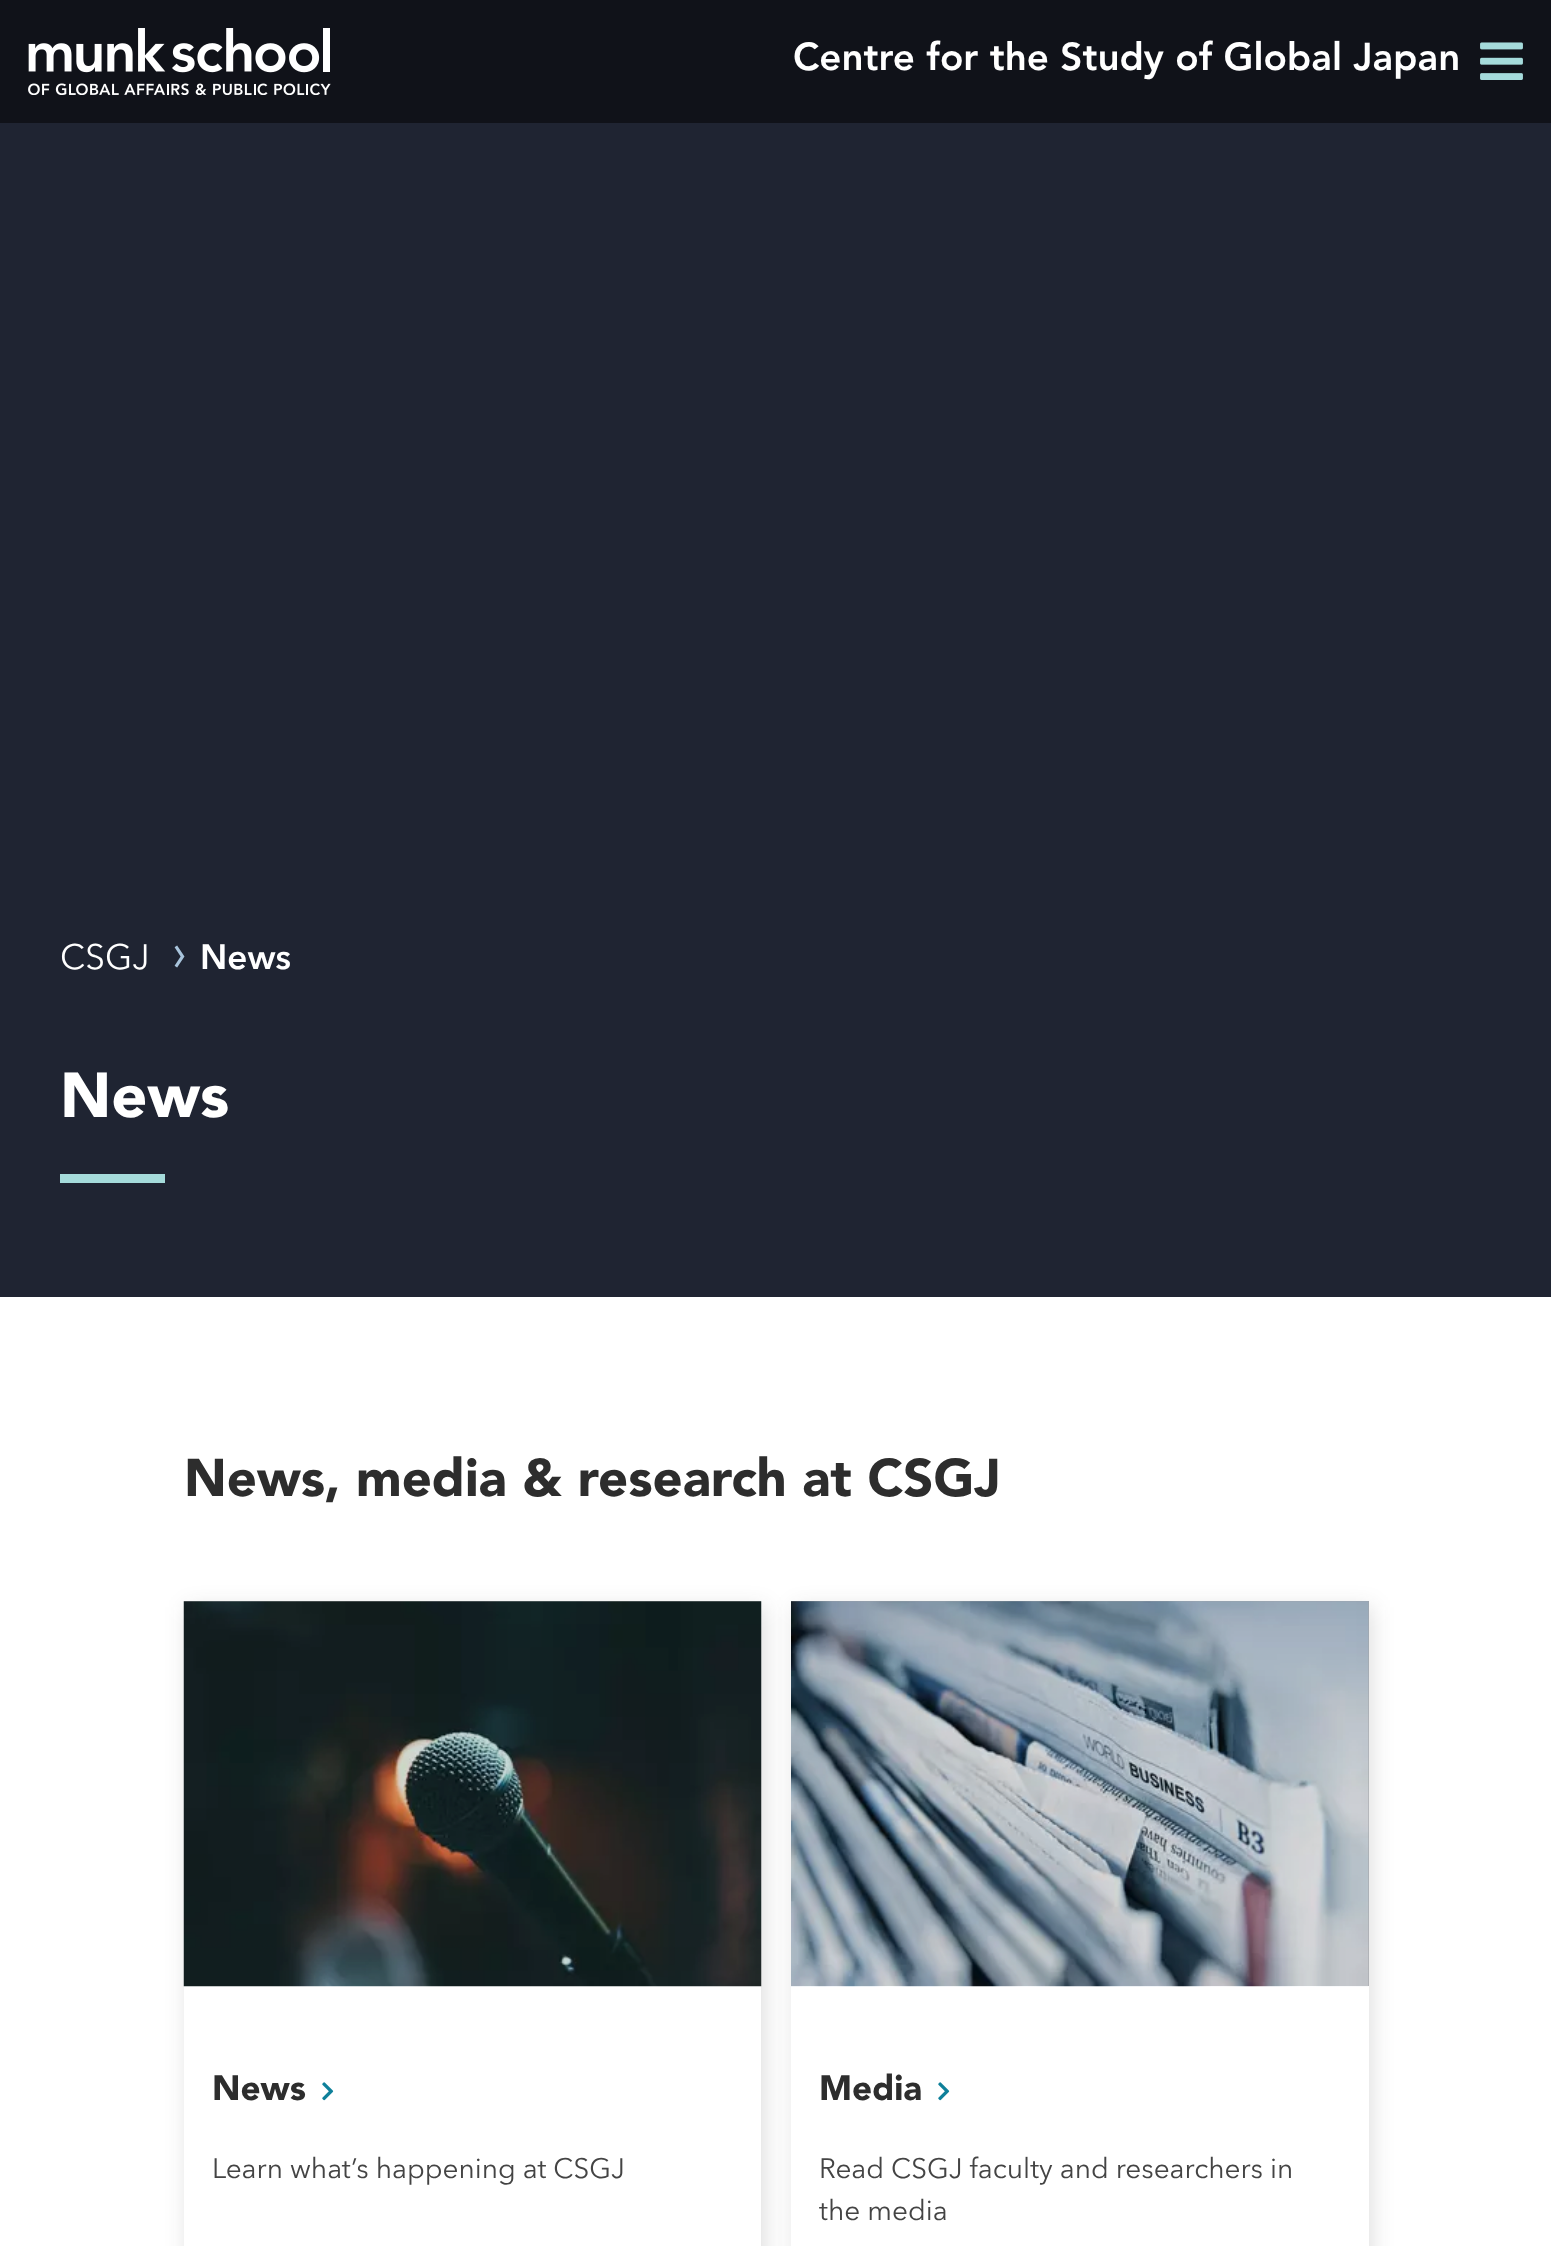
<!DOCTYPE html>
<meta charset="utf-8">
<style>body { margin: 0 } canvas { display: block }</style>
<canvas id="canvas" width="1551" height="2246"></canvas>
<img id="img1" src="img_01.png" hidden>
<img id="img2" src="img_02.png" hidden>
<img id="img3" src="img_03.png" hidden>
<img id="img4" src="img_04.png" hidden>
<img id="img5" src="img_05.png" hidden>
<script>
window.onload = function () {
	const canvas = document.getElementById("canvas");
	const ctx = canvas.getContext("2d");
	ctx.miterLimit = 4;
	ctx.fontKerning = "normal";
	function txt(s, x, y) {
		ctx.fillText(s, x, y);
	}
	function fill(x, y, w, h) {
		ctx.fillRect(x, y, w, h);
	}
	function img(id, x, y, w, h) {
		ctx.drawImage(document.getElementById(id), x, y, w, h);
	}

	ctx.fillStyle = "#FFFFFF";
	fill(0, 0, 1551, 2246);
	ctx.fillStyle = "#101219";
	fill(0, 0, 1551, 123);
	img("img1", 28, 28, 303, 67);
	img("img2", 1480, 42, 43, 38);
	ctx.fillStyle = "#1F2432";
	fill(0, 123, 1551, 1174);
	ctx.fillStyle = "#A5DBDB";
	fill(60, 1174, 105, 9);
	ctx.fillStyle = "rgba(35, 31, 32, 0.15)";
	ctx.filter = "blur(10.5px)";
	ctx.beginPath();
	ctx.rect(187, 1607, 578, 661);
	ctx.fill();
	ctx.filter = "none";
	ctx.fillStyle = "#FFFFFF";
	fill(184, 1601, 577, 645);
	img("img3", 183, 1601, 579, 386);
	ctx.fillStyle = "rgba(0, 0, 0, 0.15)";
	fill(184, 1601, 577, 385);
	img("img4", 322, 2082, 12, 19);
	ctx.fillStyle = "rgba(35, 31, 32, 0.15)";
	ctx.filter = "blur(10.5px)";
	ctx.beginPath();
	ctx.rect(795, 1607, 577, 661);
	ctx.fill();
	ctx.filter = "none";
	ctx.fillStyle = "#FFFFFF";
	fill(791, 1986, 578, 260);
	ctx.fillStyle = "#BCBEC2";
	fill(791, 1601, 578, 385);
	img("img5", 791, 1601, 578, 386);
	ctx.fillStyle = "rgba(0, 0, 0, 0.15)";
	fill(791, 1601, 578, 385);
	img("img4", 938, 2082, 12, 19);
	ctx.font = "900 38.5px 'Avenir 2'";
	ctx.fillStyle = "#FFFFFF";
	txt("Centre for the Study of Global Japan", 793, 70);
	ctx.font = "35px Avenir Next";
	txt("CSGJ", 60, 969);
	ctx.font = "52.5px Avenir Next";
	ctx.fillStyle = "#A8C4DC";
	txt("›", 171, 969);
	ctx.font = "bold 35px Avenir Next";
	ctx.fillStyle = "#FFFFFF";
	txt("News", 200, 969);
	ctx.font = "900 63px Avenir";
	txt("News", 60, 1117);
	ctx.font = "900 52.5px Avenir";
	ctx.fillStyle = "#2D2D2D";
	txt("News, media & research at CSGJ", 184, 1496);
	ctx.font = "900 35px Avenir";
	txt("News", 212, 2100);
	ctx.font = "28px Avenir Next";
	ctx.fillStyle = "#444444";
	txt("Learn what’s happening at CSGJ", 212, 2178);
	ctx.font = "900 35px Avenir";
	ctx.fillStyle = "#2D2D2D";
	txt("Media", 819, 2100);
	ctx.font = "28px Avenir Next";
	ctx.fillStyle = "#444444";
	txt("Read CSGJ faculty and researchers in", 819, 2178);
	txt("the media", 819, 2220);
};
</script>
